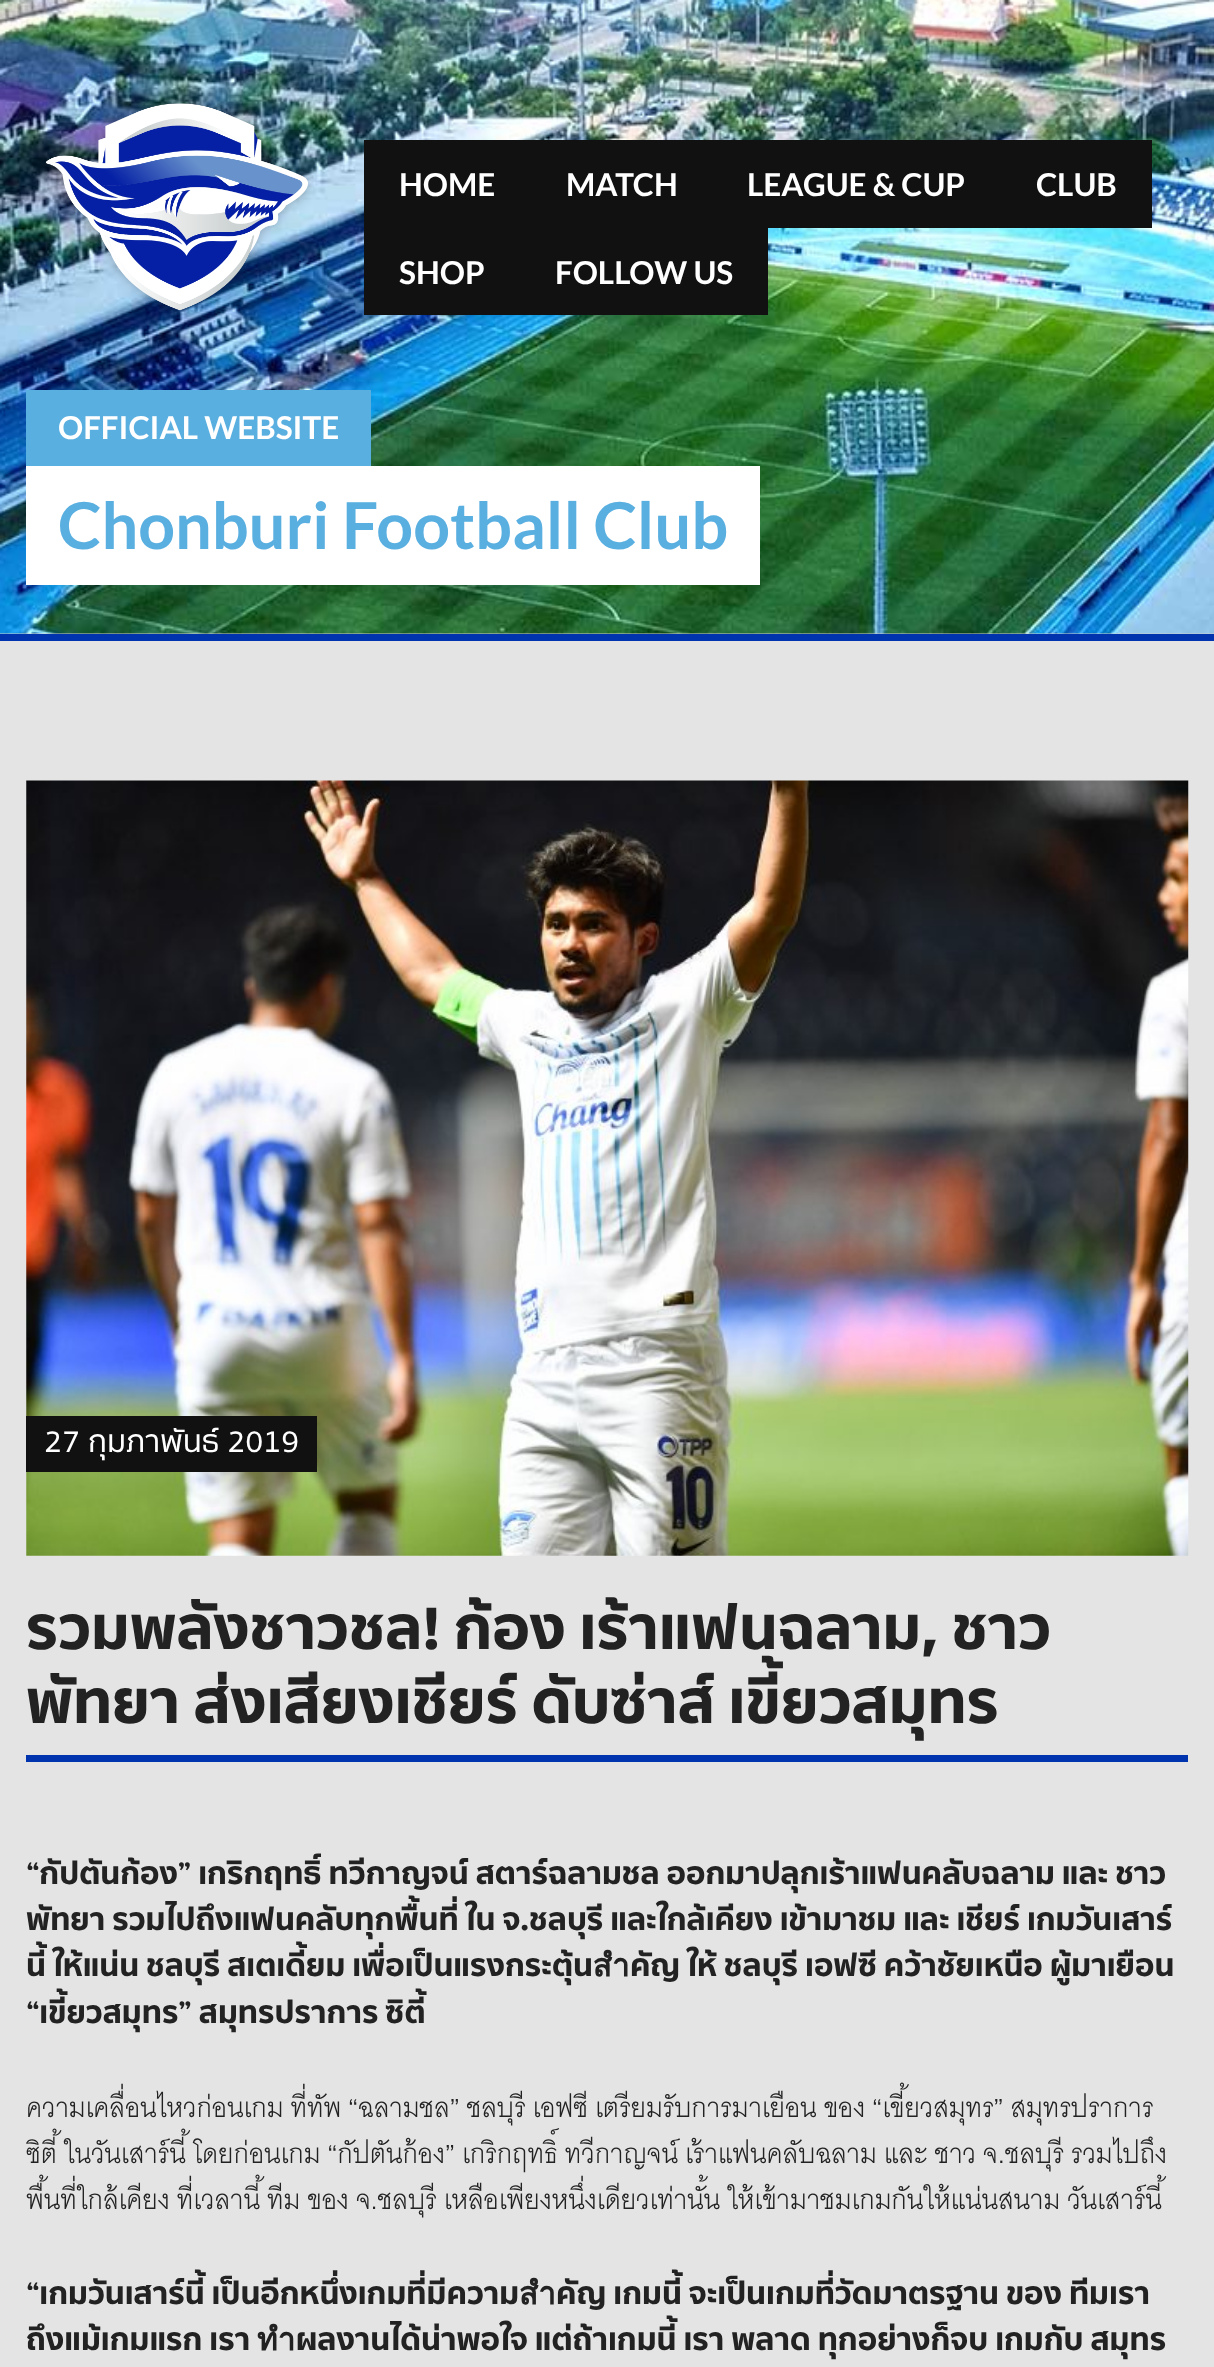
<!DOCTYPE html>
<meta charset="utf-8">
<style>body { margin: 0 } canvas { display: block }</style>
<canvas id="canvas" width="1214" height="2367"></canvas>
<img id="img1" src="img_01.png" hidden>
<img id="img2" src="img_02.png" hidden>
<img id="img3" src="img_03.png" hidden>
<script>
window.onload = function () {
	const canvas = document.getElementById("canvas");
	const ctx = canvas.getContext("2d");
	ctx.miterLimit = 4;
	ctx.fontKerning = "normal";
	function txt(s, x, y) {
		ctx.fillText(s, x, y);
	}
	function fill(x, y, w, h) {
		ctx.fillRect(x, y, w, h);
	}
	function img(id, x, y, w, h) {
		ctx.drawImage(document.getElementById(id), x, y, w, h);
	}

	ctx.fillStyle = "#E4E4E4";
	fill(0, 0, 1214, 2367);
	ctx.fillStyle = "#CCCCCC";
	fill(0, 633, 1214, 1);
	ctx.fillStyle = "#0034AF";
	fill(0, 634, 1214, 7);
	img("img1", 0, 0, 1214, 634);
	ctx.fillStyle = "#111111";
	fill(364, 140, 788, 88);
	fill(364, 228, 404, 87);
	img("img2", 45, 97, 269, 220);
	ctx.fillStyle = "#5AAFE1";
	fill(26, 390, 345, 76);
	ctx.fillStyle = "#FFFFFF";
	fill(26, 466, 734, 119);
	img("img3", 26, 780, 1163, 776);
	ctx.fillStyle = "#111111";
	fill(26, 1416, 291, 56);
	ctx.fillStyle = "#0034AF";
	fill(26, 1755, 1162, 7);
	ctx.font = "bold 31.5px Lato";
	ctx.fillStyle = "#FFFFFF";
	txt("HOME", 399, 196);
	txt("MATCH", 566, 196);
	txt("LEAGUE & CUP", 747, 196);
	txt("CLUB", 1036, 196);
	txt("SHOP", 399, 284);
	txt("FOLLOW US", 555, 284);
	txt("OFFICIAL WEBSITE", 58, 439);
	ctx.font = "bold 64.75px Lato";
	ctx.fillStyle = "#5AAFE1";
	txt("Chonburi Football Club", 58, 549);
	ctx.font = "500 31.5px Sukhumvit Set";
	ctx.fillStyle = "#FFFFFF";
	txt("27 กุมภาพันธ์ 2019", 44, 1452);
	ctx.font = "800 61.25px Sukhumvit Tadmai";
	ctx.fillStyle = "#222222";
	txt("รวมพลังชาวชล! ก้อง เร้าแฟนฉลาม, ชาว", 26, 1649);
	txt("พัทยา ส่งเสียงเชียร์ ดับซ่าส์ เขี้ยวสมุทร", 26, 1723);
	ctx.font = "800 31.5px Sukhumvit Tadmai";
	txt("“กัปตันก้อง” เกริกฤทธิ์ ทวีกาญจน์ สตาร์ฉลามชล ออกมาปลุกเร้าแฟนคลับฉลาม และ ชาว", 26, 1884);
	txt("พัทยา รวมไปถึงแฟนคลับทุกพื้นที่ ใน จ.ชลบุรี และใกล้เคียง เข้ามาชม และ เชียร์ เกมวันเสาร์", 26, 1930);
	txt("นี้ ให้แน่น ชลบุรี สเตเดี้ยม เพื่อเป็นแรงกระตุ้นสำคัญ ให้ ชลบุรี เอฟซี คว้าชัยเหนือ ผู้มาเยือน", 26, 1976);
	txt("“เขี้ยวสมุทร” สมุทรปราการ ซิตี้", 26, 2023);
	ctx.font = "38.5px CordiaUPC";
	txt("ความเคลื่อนไหวก่อนเกม ที่ทัพ “ฉลามชล” ชลบุรี เอฟซี เตรียมรับการมาเยือน ของ “เขี้ยวสมุทร” สมุทรปราการ", 26, 2117);
	txt("ซิตี้ ในวันเสาร์นี้ โดยก่อนเกม “กัปตันก้อง” เกริกฤทธิ์ ทวีกาญจน์ เร้าแฟนคลับฉลาม และ ชาว จ.ชลบุรี รวมไปถึง", 26, 2163);
	txt("พื้นที่ใกล้เคียง ที่เวลานี้ ทีม ของ จ.ชลบุรี เหลือเพียงหนึ่งเดียวเท่านั้น ให้เข้ามาชมเกมกันให้แน่นสนาม วันเสาร์นี้", 26, 2209);
	ctx.font = "800 31.5px Sukhumvit Tadmai";
	txt("“เกมวันเสาร์นี้ เป็นอีกหนึ่งเกมที่มีความสำคัญ เกมนี้ จะเป็นเกมที่วัดมาตรฐาน ของ ทีมเรา", 26, 2304);
	txt("ถึงแม้เกมแรก เรา ทำผลงานได้น่าพอใจ แต่ถ้าเกมนี้ เรา พลาด ทุกอย่างก็จบ เกมกับ สมุทร", 26, 2350);
};
</script>
